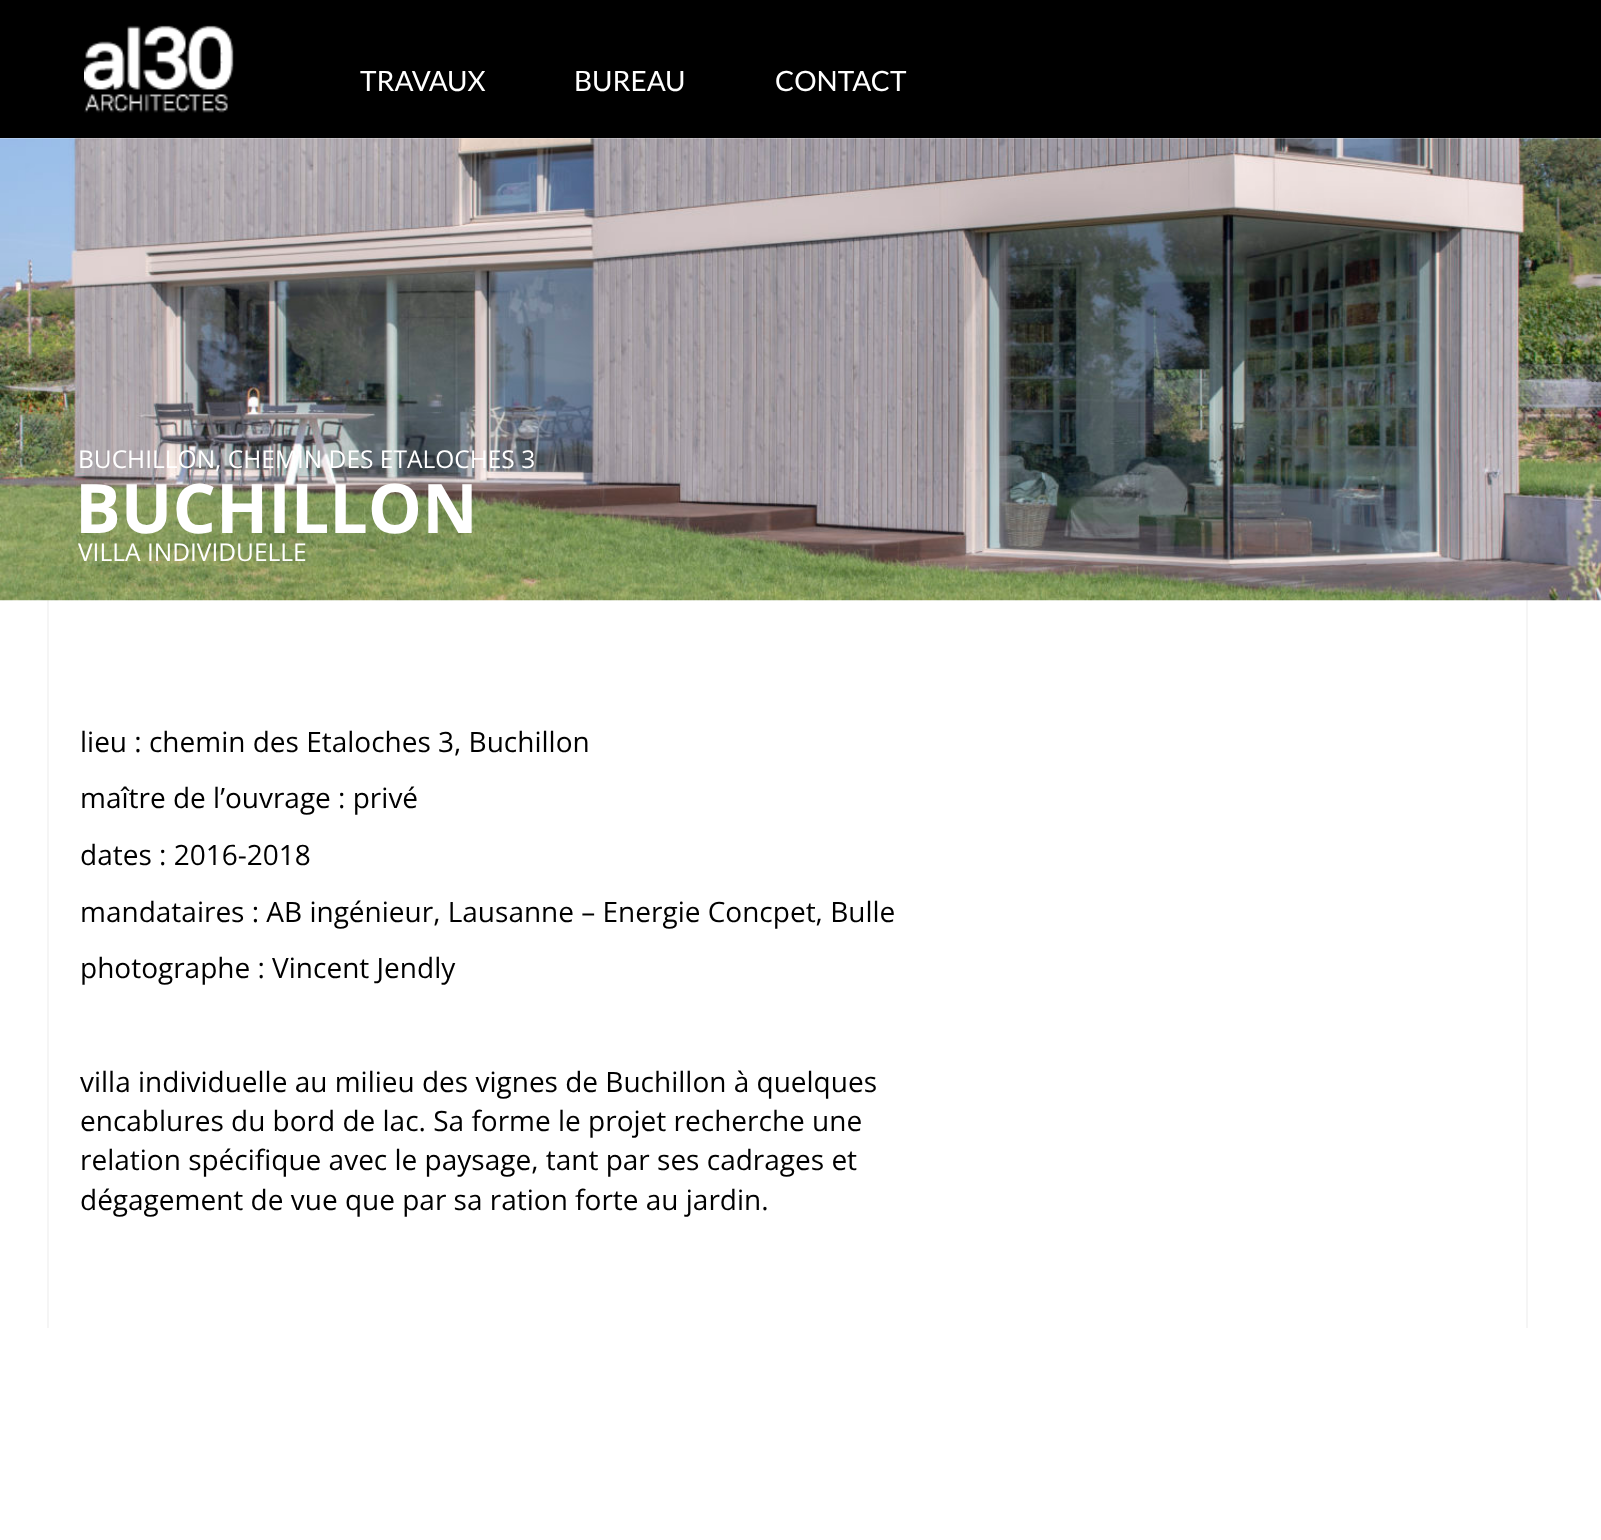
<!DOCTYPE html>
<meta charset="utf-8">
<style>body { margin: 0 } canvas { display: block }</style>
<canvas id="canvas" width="1601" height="1540"></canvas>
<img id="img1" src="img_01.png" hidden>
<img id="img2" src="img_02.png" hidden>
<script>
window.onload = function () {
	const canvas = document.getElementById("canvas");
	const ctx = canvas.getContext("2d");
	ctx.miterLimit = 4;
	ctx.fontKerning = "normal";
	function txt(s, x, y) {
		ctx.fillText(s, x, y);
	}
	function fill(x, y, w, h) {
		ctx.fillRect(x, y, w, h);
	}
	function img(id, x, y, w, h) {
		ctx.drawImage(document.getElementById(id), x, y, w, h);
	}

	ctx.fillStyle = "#FFFFFF";
	fill(0, 0, 1601, 1540);
	ctx.fillStyle = "#000000";
	fill(0, 0, 1601, 138);
	img("img1", 84, 25, 150, 88);
	ctx.fillStyle = "#F5F5F5";
	fill(1526, 600, 2, 728);
	fill(47, 600, 2, 728);
	img("img2", 0, 138, 1601, 463);
	ctx.font = "28px Lato";
	ctx.fillStyle = "#FFFFFF";
	txt("TRAVAUX", 360, 91);
	txt("BUREAU", 574, 91);
	txt("CONTACT", 775, 91);
	ctx.font = "24.5px Open Sans";
	txt("BUCHILLON, CHEMIN DES ETALOCHES 3", 78, 468);
	ctx.font = "bold 68.25px Open Sans";
	txt("BUCHILLON", 75, 533);
	ctx.font = "24.5px Open Sans";
	txt("VILLA INDIVIDUELLE", 78, 561);
	ctx.font = "28px Open Sans";
	ctx.fillStyle = "#000000";
	txt("lieu : chemin des Etaloches 3, Buchillon", 80, 752);
	txt("maître de l’ouvrage : privé", 80, 808);
	txt("dates : 2016-2018", 80, 865);
	txt("mandataires : AB ingénieur, Lausanne – Energie Concpet, Bulle", 80, 922);
	txt("photographe : Vincent Jendly", 80, 978);
	txt("villa individuelle au milieu des vignes de Buchillon à quelques", 80, 1092);
	txt("encablures du bord de lac. Sa forme le projet recherche une", 80, 1131);
	txt("relation spécifique avec le paysage, tant par ses cadrages et", 80, 1170);
	txt("dégagement de vue que par sa ration forte au jardin.", 80, 1210);
};
</script>
